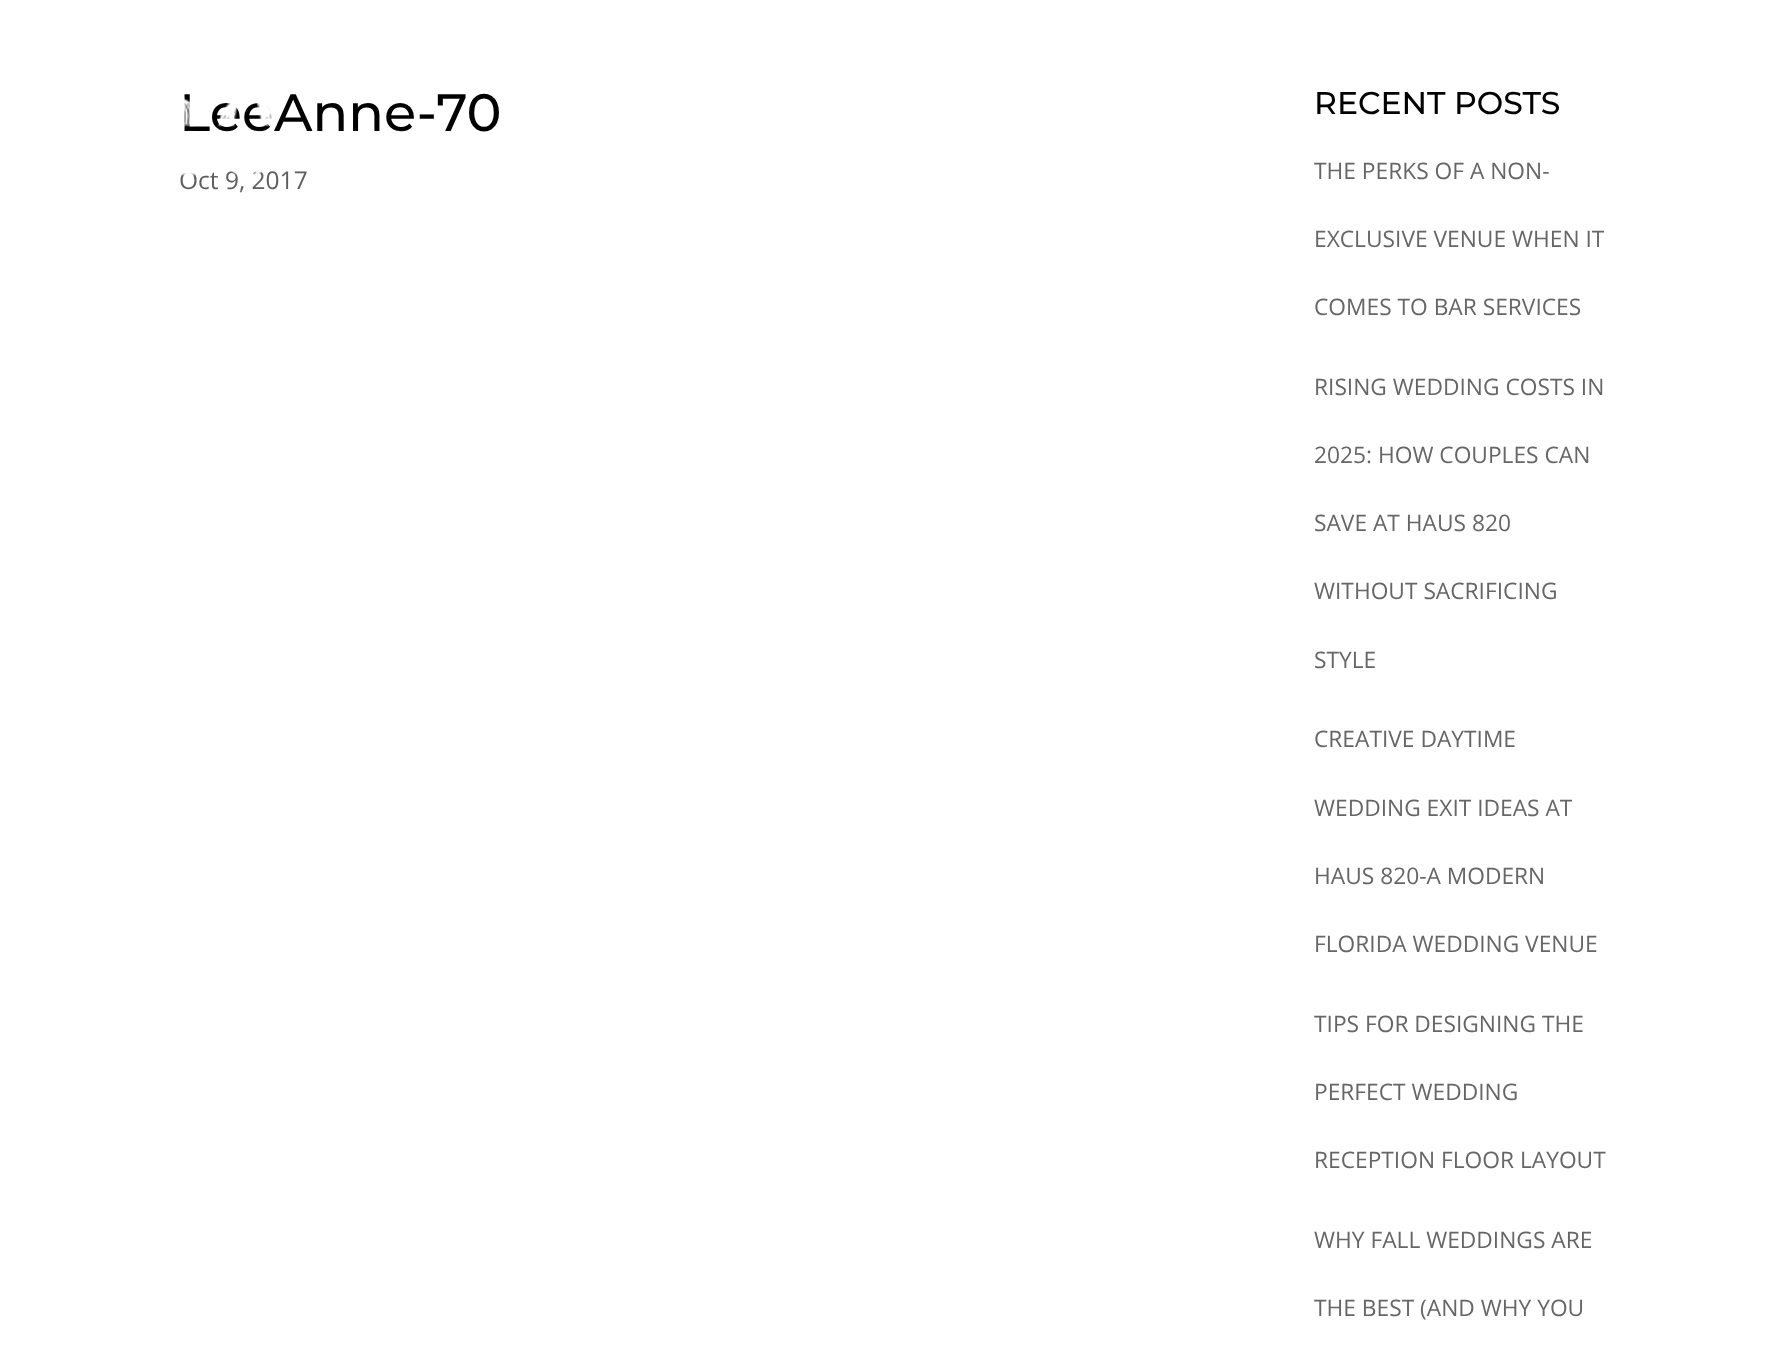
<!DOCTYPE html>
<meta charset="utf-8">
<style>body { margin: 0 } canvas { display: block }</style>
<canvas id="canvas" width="1792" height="1370"></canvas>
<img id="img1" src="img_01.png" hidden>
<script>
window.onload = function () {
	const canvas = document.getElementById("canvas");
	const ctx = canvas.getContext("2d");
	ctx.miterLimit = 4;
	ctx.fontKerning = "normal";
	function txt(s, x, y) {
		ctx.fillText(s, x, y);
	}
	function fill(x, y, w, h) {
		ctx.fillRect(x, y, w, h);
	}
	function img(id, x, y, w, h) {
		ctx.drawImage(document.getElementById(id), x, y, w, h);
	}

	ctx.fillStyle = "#FFFFFF";
	fill(0, 0, 1792, 1370);
	ctx.font = "500 52.5px Montserrat";
	ctx.fillStyle = "#000000";
	txt("LeeAnne-70", 179, 131);
	ctx.font = "24.5px Open Sans";
	ctx.fillStyle = "#5E5E5E";
	txt("Oct 9, 2017", 179, 189);
	ctx.font = "500 31.5px Montserrat";
	ctx.fillStyle = "#000000";
	txt("RECENT POSTS", 1314, 114);
	ctx.font = "22.75px Open Sans";
	ctx.fillStyle = "#666666";
	txt("THE PERKS OF A NON-", 1314, 179);
	txt("EXCLUSIVE VENUE WHEN IT", 1314, 247);
	txt("COMES TO BAR SERVICES", 1314, 315);
	txt("RISING WEDDING COSTS IN", 1314, 395);
	txt("2025: HOW COUPLES CAN", 1314, 463);
	txt("SAVE AT HAUS 820", 1314, 531);
	txt("WITHOUT SACRIFICING", 1314, 599);
	txt("STYLE", 1314, 668);
	txt("CREATIVE DAYTIME", 1314, 747);
	txt("WEDDING EXIT IDEAS AT", 1314, 816);
	txt("HAUS 820-A MODERN", 1314, 884);
	txt("FLORIDA WEDDING VENUE", 1314, 952);
	txt("TIPS FOR DESIGNING THE", 1314, 1032);
	txt("PERFECT WEDDING", 1314, 1100);
	txt("RECEPTION FLOOR LAYOUT", 1314, 1168);
	txt("WHY FALL WEDDINGS ARE", 1314, 1248);
	txt("THE BEST (AND WHY YOU", 1314, 1316);
	img("img1", 181, 97, 138, 79);
};
</script>
